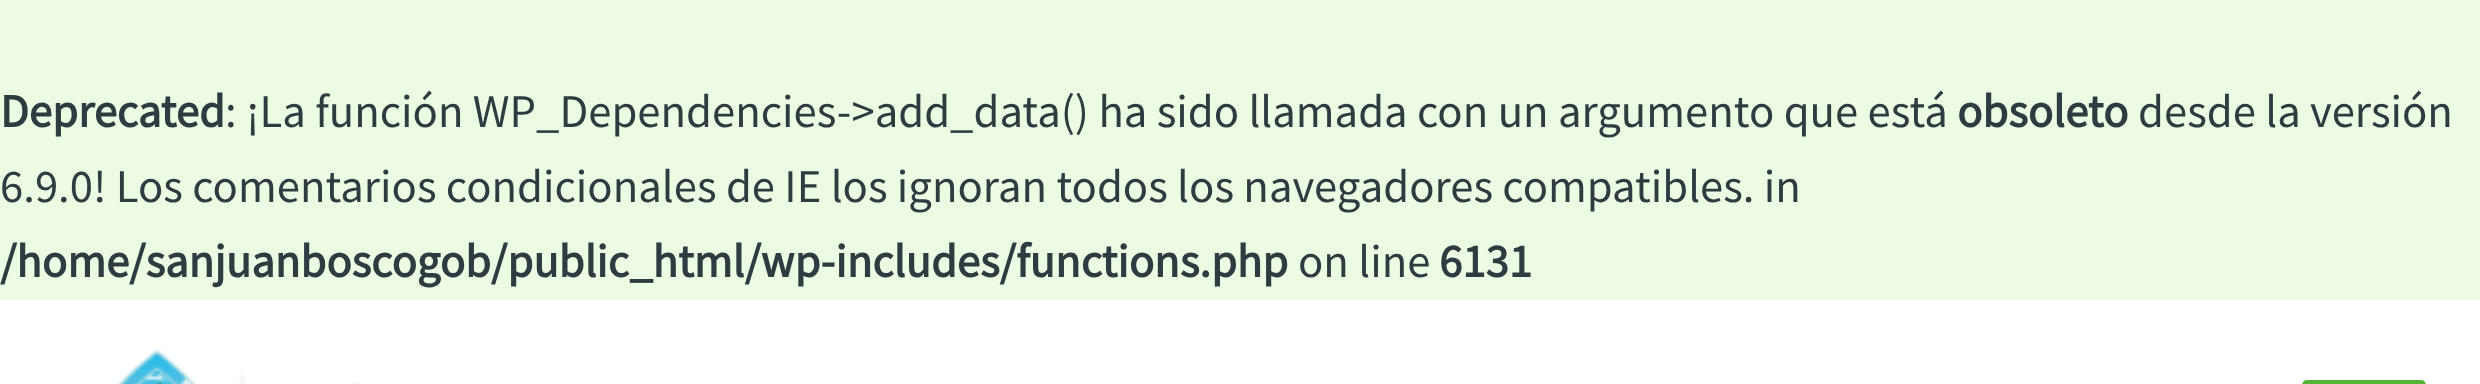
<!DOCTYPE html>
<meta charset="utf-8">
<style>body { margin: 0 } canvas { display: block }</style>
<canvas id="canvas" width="2480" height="384"></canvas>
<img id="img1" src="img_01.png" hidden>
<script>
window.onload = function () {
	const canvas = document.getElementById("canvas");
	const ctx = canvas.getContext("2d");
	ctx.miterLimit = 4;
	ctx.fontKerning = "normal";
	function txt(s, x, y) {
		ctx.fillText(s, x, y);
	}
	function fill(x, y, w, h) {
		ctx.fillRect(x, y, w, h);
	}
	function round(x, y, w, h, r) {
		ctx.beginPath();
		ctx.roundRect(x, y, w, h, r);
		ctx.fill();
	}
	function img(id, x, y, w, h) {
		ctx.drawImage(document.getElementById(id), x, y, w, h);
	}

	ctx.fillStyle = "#EDFBE2";
	fill(0, 0, 2480, 384);
	ctx.fillStyle = "#FFFFFF";
	fill(0, 300, 2480, 84);
	img("img1", 117, 349, 242, 35);
	ctx.fillStyle = "#54B435";
	round(2302, 380, 124, 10, 6);
	ctx.font = "bold 46.75px Source Sans Pro";
	ctx.fillStyle = "#2F3B40";
	txt("Deprecated", 0, 127);
	ctx.font = "46.75px Source Sans Pro";
	txt(": ¡La función WP_Dependencies->add_data() ha sido llamada con un argumento que está", 225, 127);
	ctx.font = "bold 46.75px Source Sans Pro";
	txt("obsoleto", 1957, 127);
	ctx.font = "46.75px Source Sans Pro";
	txt("desde la versión", 2138, 127);
	txt("6.9.0! Los comentarios condicionales de IE los ignoran todos los navegadores compatibles. in", 0, 202);
	ctx.font = "bold 46.75px Source Sans Pro";
	txt("/home/sanjuanboscogob/public_html/wp-includes/functions.php", 0, 277);
	ctx.font = "46.75px Source Sans Pro";
	txt("on line", 1298, 277);
	ctx.font = "bold 46.75px Source Sans Pro";
	txt("6131", 1439, 277);
};
</script>
